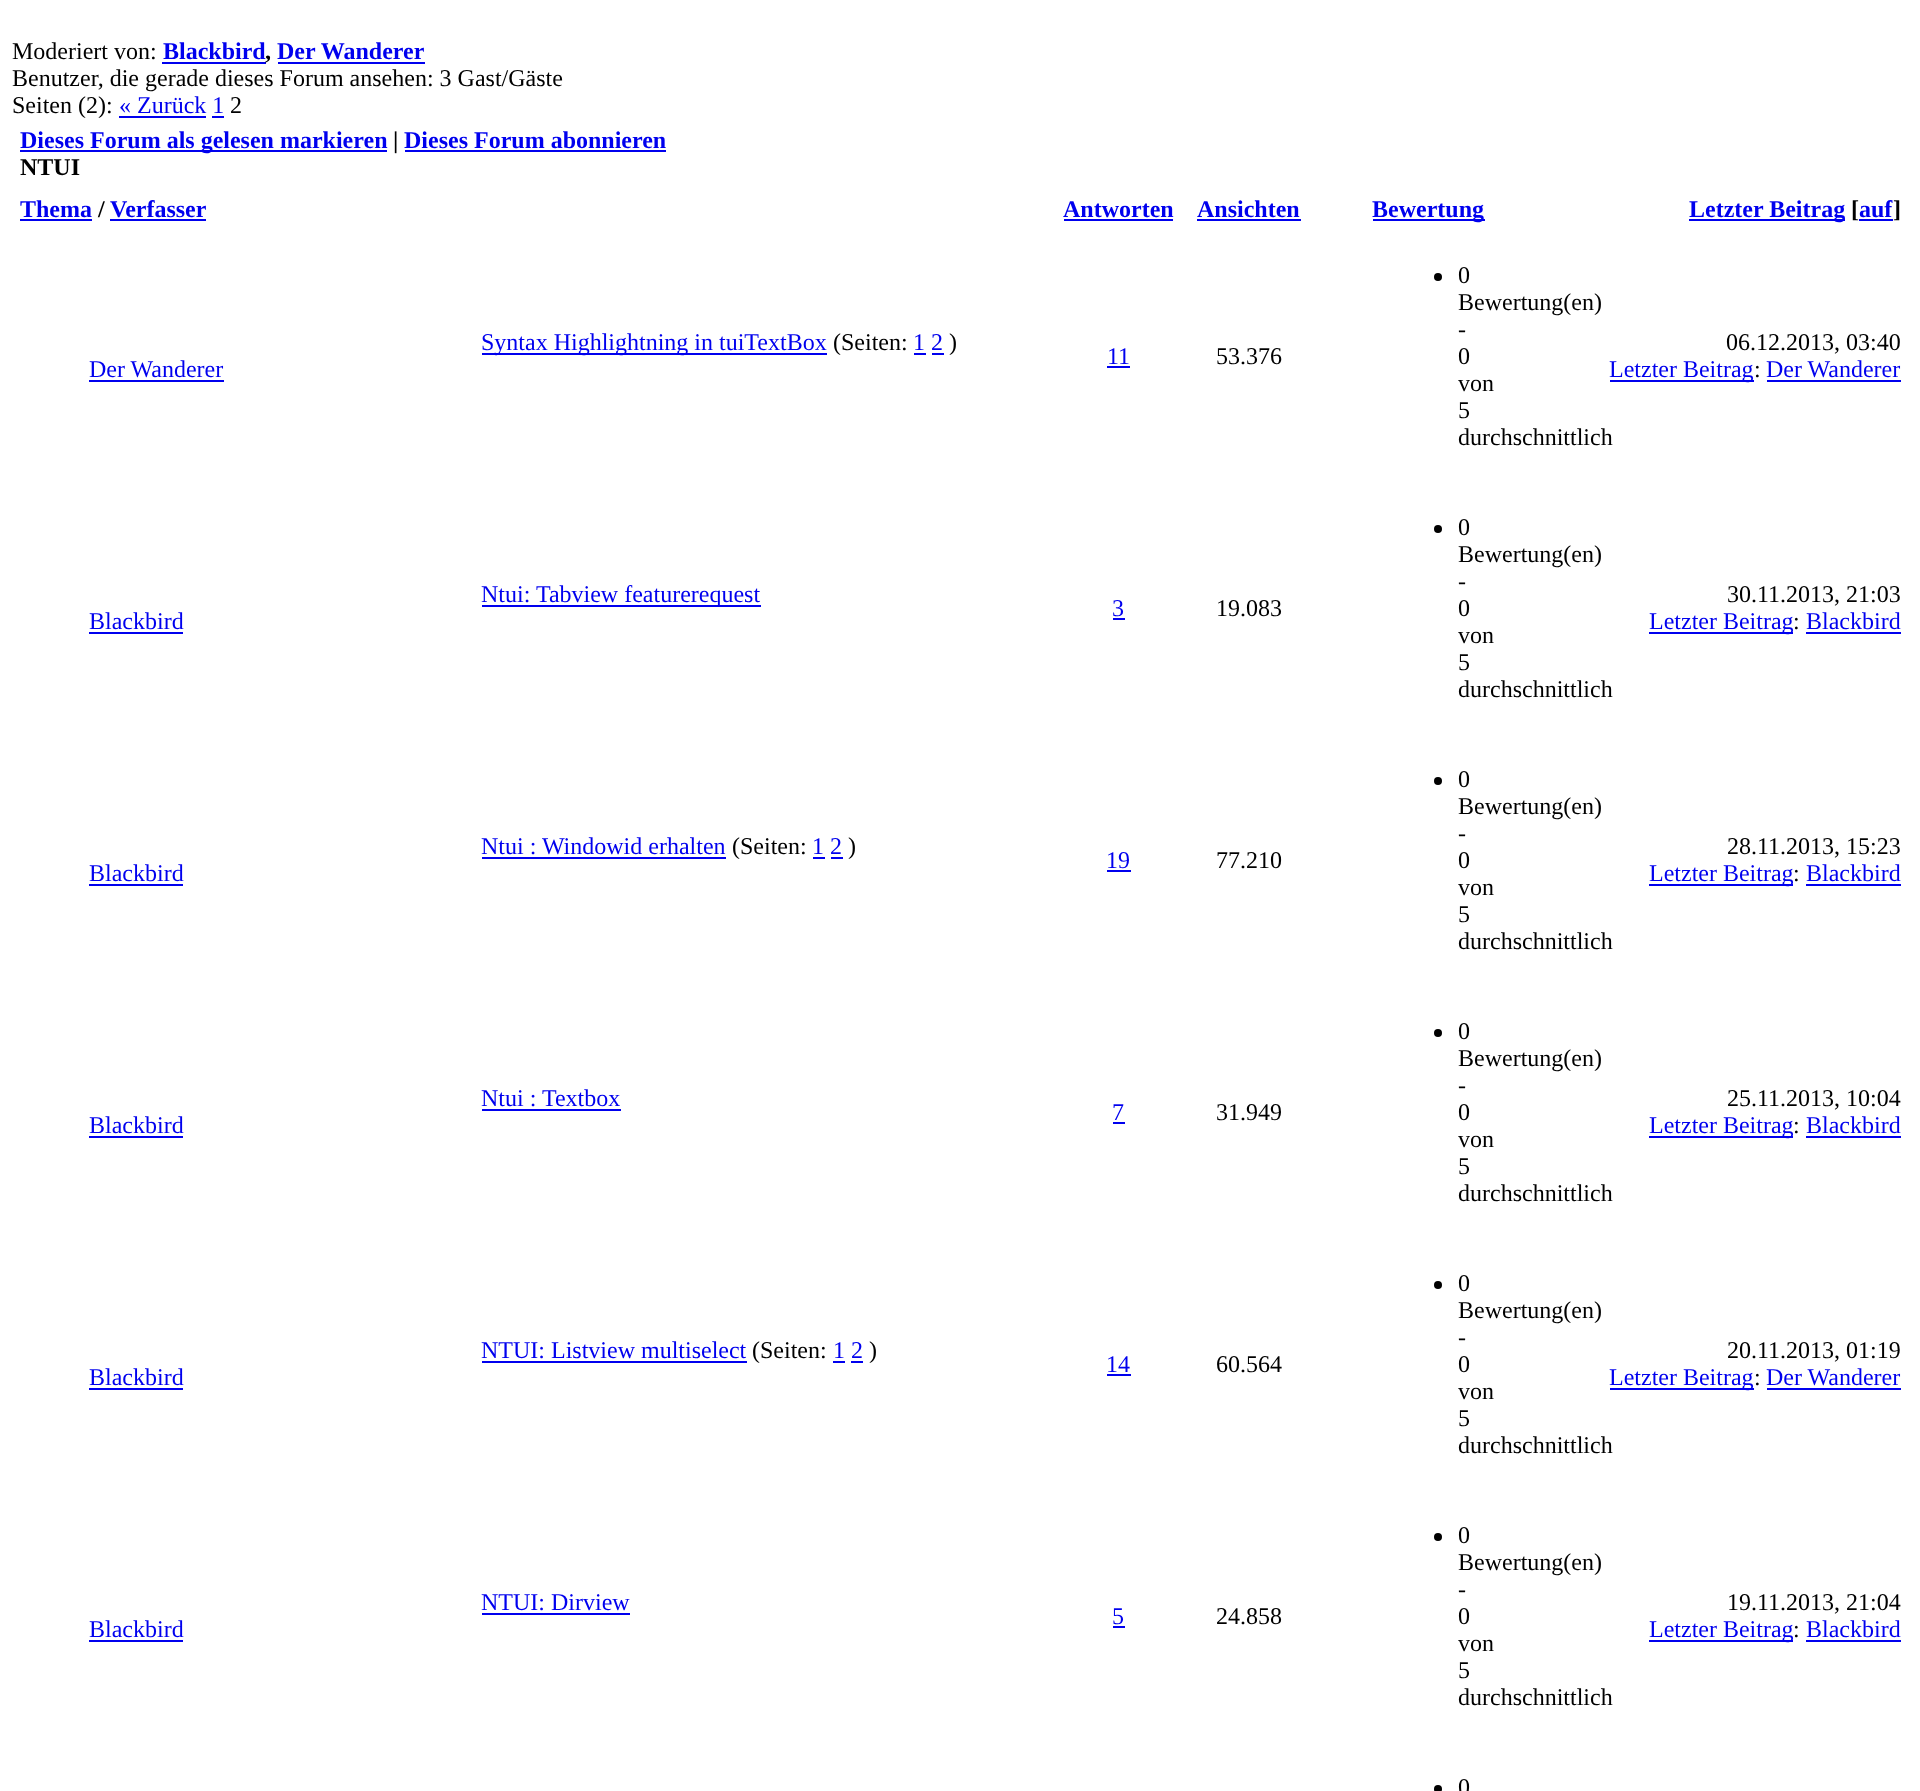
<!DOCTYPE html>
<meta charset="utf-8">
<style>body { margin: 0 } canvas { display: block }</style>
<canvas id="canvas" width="1920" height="1791"></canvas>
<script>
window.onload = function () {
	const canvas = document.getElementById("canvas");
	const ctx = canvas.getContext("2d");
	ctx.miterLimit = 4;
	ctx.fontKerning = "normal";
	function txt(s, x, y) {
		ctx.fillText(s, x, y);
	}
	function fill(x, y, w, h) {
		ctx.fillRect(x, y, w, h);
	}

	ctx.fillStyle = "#FFFFFF";
	fill(0, 0, 1920, 1791);
	ctx.fillStyle = "#0000EE";
	fill(162, 62, 104, 2);
	fill(278, 62, 147, 2);
	fill(119, 116, 87, 2);
	fill(212, 116, 12, 2);
	fill(20, 150, 367, 2);
	fill(405, 150, 261, 2);
	fill(20, 219, 72, 2);
	fill(110, 219, 96, 2);
	fill(1064, 219, 109, 2);
	fill(1197, 219, 104, 2);
	fill(1373, 219, 112, 2);
	fill(1689, 219, 156, 2);
	fill(1859, 219, 34, 2);
	fill(482, 353, 345, 2);
	fill(914, 353, 12, 2);
	fill(932, 353, 12, 2);
	fill(89, 380, 135, 2);
	fill(1107, 366, 23, 2);
	ctx.fillStyle = "#000000";
	ctx.beginPath();
	ctx.arc(1438, 277, 4, 0, Math.PI * 2);
	ctx.fill();
	ctx.fillStyle = "#0000EE";
	fill(1610, 380, 144, 2);
	fill(1767, 380, 134, 2);
	fill(482, 605, 279, 2);
	fill(89, 632, 94, 2);
	fill(1113, 618, 12, 2);
	ctx.fillStyle = "#000000";
	ctx.beginPath();
	ctx.arc(1438, 529, 4, 0, Math.PI * 2);
	ctx.fill();
	ctx.fillStyle = "#0000EE";
	fill(1649, 632, 144, 2);
	fill(1806, 632, 95, 2);
	fill(482, 857, 244, 2);
	fill(813, 857, 12, 2);
	fill(831, 857, 12, 2);
	fill(89, 884, 94, 2);
	fill(1107, 870, 24, 2);
	ctx.fillStyle = "#000000";
	ctx.beginPath();
	ctx.arc(1438, 781, 4, 0, Math.PI * 2);
	ctx.fill();
	ctx.fillStyle = "#0000EE";
	fill(1649, 884, 144, 2);
	fill(1806, 884, 95, 2);
	fill(482, 1109, 139, 2);
	fill(89, 1136, 94, 2);
	fill(1113, 1122, 12, 2);
	ctx.fillStyle = "#000000";
	ctx.beginPath();
	ctx.arc(1438, 1033, 4, 0, Math.PI * 2);
	ctx.fill();
	ctx.fillStyle = "#0000EE";
	fill(1649, 1136, 144, 2);
	fill(1806, 1136, 95, 2);
	fill(482, 1361, 265, 2);
	fill(833, 1361, 12, 2);
	fill(851, 1361, 12, 2);
	fill(89, 1388, 94, 2);
	fill(1107, 1374, 24, 2);
	ctx.fillStyle = "#000000";
	ctx.beginPath();
	ctx.arc(1438, 1285, 4, 0, Math.PI * 2);
	ctx.fill();
	ctx.fillStyle = "#0000EE";
	fill(1610, 1388, 144, 2);
	fill(1767, 1388, 134, 2);
	fill(482, 1613, 148, 2);
	fill(89, 1640, 94, 2);
	fill(1113, 1626, 12, 2);
	ctx.fillStyle = "#000000";
	ctx.beginPath();
	ctx.arc(1438, 1537, 4, 0, Math.PI * 2);
	ctx.fill();
	ctx.fillStyle = "#0000EE";
	fill(1649, 1640, 144, 2);
	fill(1806, 1640, 95, 2);
	ctx.fillStyle = "#000000";
	ctx.beginPath();
	ctx.arc(1438, 1789, 4, 0, Math.PI * 2);
	ctx.fill();
	ctx.font = "24px Liberation Serif";
	txt("Moderiert von:", 12, 59);
	ctx.font = "bold 24px Liberation Serif";
	ctx.fillStyle = "#0000EE";
	txt("Blackbird", 163, 59);
	ctx.fillStyle = "#000000";
	txt(",", 265, 59);
	ctx.fillStyle = "#0000EE";
	txt("Der Wanderer", 277, 59);
	ctx.font = "24px Liberation Serif";
	ctx.fillStyle = "#000000";
	txt("Benutzer, die gerade dieses Forum ansehen: 3 Gast/Gäste", 12, 86);
	txt("Seiten (2):", 12, 113);
	ctx.fillStyle = "#0000EE";
	txt("« Zurück 1", 119, 113);
	ctx.fillStyle = "#000000";
	txt("2", 230, 113);
	ctx.font = "bold 24px Liberation Serif";
	ctx.fillStyle = "#0000EE";
	txt("Dieses Forum als gelesen markieren", 20, 148);
	ctx.fillStyle = "#000000";
	txt("|", 393, 148);
	ctx.fillStyle = "#0000EE";
	txt("Dieses Forum abonnieren", 404, 148);
	ctx.fillStyle = "#000000";
	txt("NTUI", 20, 175);
	ctx.fillStyle = "#0000EE";
	txt("Thema", 20, 217);
	ctx.fillStyle = "#000000";
	txt("/", 98, 217);
	ctx.fillStyle = "#0000EE";
	txt("Verfasser", 110, 217);
	txt("Antworten", 1063, 217);
	txt("Ansichten", 1197, 217);
	txt("Bewertung", 1372, 217);
	txt("Letzter Beitrag", 1689, 217);
	ctx.fillStyle = "#000000";
	txt("[", 1851, 217);
	ctx.fillStyle = "#0000EE";
	txt("auf", 1859, 217);
	ctx.fillStyle = "#000000";
	txt("]", 1893, 217);
	ctx.font = "24px Liberation Serif";
	ctx.fillStyle = "#0000EE";
	txt("Syntax Highlightning in tuiTextBox", 481, 350);
	ctx.fillStyle = "#000000";
	txt("(Seiten:", 833, 350);
	ctx.fillStyle = "#0000EE";
	txt("1 2", 913, 350);
	ctx.fillStyle = "#000000";
	txt(")", 949, 350);
	ctx.fillStyle = "#0000EE";
	txt("Der Wanderer", 89, 377);
	txt("11", 1107, 364);
	ctx.fillStyle = "#000000";
	txt("53.376", 1216, 364);
	txt("0", 1458, 283);
	txt("Bewertung(en)", 1458, 310);
	txt("-", 1458, 337);
	txt("0", 1458, 364);
	txt("von", 1458, 391);
	txt("5", 1458, 418);
	txt("durchschnittlich", 1458, 445);
	txt("06.12.2013, 03:40", 1726, 350);
	ctx.fillStyle = "#0000EE";
	txt("Letzter Beitrag", 1609, 377);
	ctx.fillStyle = "#000000";
	txt(":", 1754, 377);
	ctx.fillStyle = "#0000EE";
	txt("Der Wanderer", 1766, 377);
	txt("Ntui: Tabview featurerequest", 481, 602);
	txt("Blackbird", 89, 629);
	txt("3", 1112, 616);
	ctx.fillStyle = "#000000";
	txt("19.083", 1216, 616);
	txt("0", 1458, 535);
	txt("Bewertung(en)", 1458, 562);
	txt("-", 1458, 589);
	txt("0", 1458, 616);
	txt("von", 1458, 643);
	txt("5", 1458, 670);
	txt("durchschnittlich", 1458, 697);
	txt("30.11.2013, 21:03", 1727, 602);
	ctx.fillStyle = "#0000EE";
	txt("Letzter Beitrag", 1649, 629);
	ctx.fillStyle = "#000000";
	txt(":", 1793, 629);
	ctx.fillStyle = "#0000EE";
	txt("Blackbird", 1806, 629);
	txt("Ntui : Windowid erhalten", 481, 854);
	ctx.fillStyle = "#000000";
	txt("(Seiten:", 732, 854);
	ctx.fillStyle = "#0000EE";
	txt("1 2", 812, 854);
	ctx.fillStyle = "#000000";
	txt(")", 848, 854);
	ctx.fillStyle = "#0000EE";
	txt("Blackbird", 89, 881);
	txt("19", 1106, 868);
	ctx.fillStyle = "#000000";
	txt("77.210", 1216, 868);
	txt("0", 1458, 787);
	txt("Bewertung(en)", 1458, 814);
	txt("-", 1458, 841);
	txt("0", 1458, 868);
	txt("von", 1458, 895);
	txt("5", 1458, 922);
	txt("durchschnittlich", 1458, 949);
	txt("28.11.2013, 15:23", 1727, 854);
	ctx.fillStyle = "#0000EE";
	txt("Letzter Beitrag", 1649, 881);
	ctx.fillStyle = "#000000";
	txt(":", 1793, 881);
	ctx.fillStyle = "#0000EE";
	txt("Blackbird", 1806, 881);
	txt("Ntui : Textbox", 481, 1106);
	txt("Blackbird", 89, 1133);
	txt("7", 1112, 1120);
	ctx.fillStyle = "#000000";
	txt("31.949", 1216, 1120);
	txt("0", 1458, 1039);
	txt("Bewertung(en)", 1458, 1066);
	txt("-", 1458, 1093);
	txt("0", 1458, 1120);
	txt("von", 1458, 1147);
	txt("5", 1458, 1174);
	txt("durchschnittlich", 1458, 1201);
	txt("25.11.2013, 10:04", 1727, 1106);
	ctx.fillStyle = "#0000EE";
	txt("Letzter Beitrag", 1649, 1133);
	ctx.fillStyle = "#000000";
	txt(":", 1793, 1133);
	ctx.fillStyle = "#0000EE";
	txt("Blackbird", 1806, 1133);
	txt("NTUI: Listview multiselect", 481, 1358);
	ctx.fillStyle = "#000000";
	txt("(Seiten:", 752, 1358);
	ctx.fillStyle = "#0000EE";
	txt("1 2", 833, 1358);
	ctx.fillStyle = "#000000";
	txt(")", 869, 1358);
	ctx.fillStyle = "#0000EE";
	txt("Blackbird", 89, 1385);
	txt("14", 1106, 1372);
	ctx.fillStyle = "#000000";
	txt("60.564", 1216, 1372);
	txt("0", 1458, 1291);
	txt("Bewertung(en)", 1458, 1318);
	txt("-", 1458, 1345);
	txt("0", 1458, 1372);
	txt("von", 1458, 1399);
	txt("5", 1458, 1426);
	txt("durchschnittlich", 1458, 1453);
	txt("20.11.2013, 01:19", 1727, 1358);
	ctx.fillStyle = "#0000EE";
	txt("Letzter Beitrag", 1609, 1385);
	ctx.fillStyle = "#000000";
	txt(":", 1754, 1385);
	ctx.fillStyle = "#0000EE";
	txt("Der Wanderer", 1766, 1385);
	txt("NTUI: Dirview", 481, 1610);
	txt("Blackbird", 89, 1637);
	txt("5", 1112, 1624);
	ctx.fillStyle = "#000000";
	txt("24.858", 1216, 1624);
	txt("0", 1458, 1543);
	txt("Bewertung(en)", 1458, 1570);
	txt("-", 1458, 1597);
	txt("0", 1458, 1624);
	txt("von", 1458, 1651);
	txt("5", 1458, 1678);
	txt("durchschnittlich", 1458, 1705);
	txt("19.11.2013, 21:04", 1727, 1610);
	ctx.fillStyle = "#0000EE";
	txt("Letzter Beitrag", 1649, 1637);
	ctx.fillStyle = "#000000";
	txt(":", 1793, 1637);
	ctx.fillStyle = "#0000EE";
	txt("Blackbird", 1806, 1637);
	ctx.fillStyle = "#000000";
	txt("0", 1458, 1795);
};
</script>
